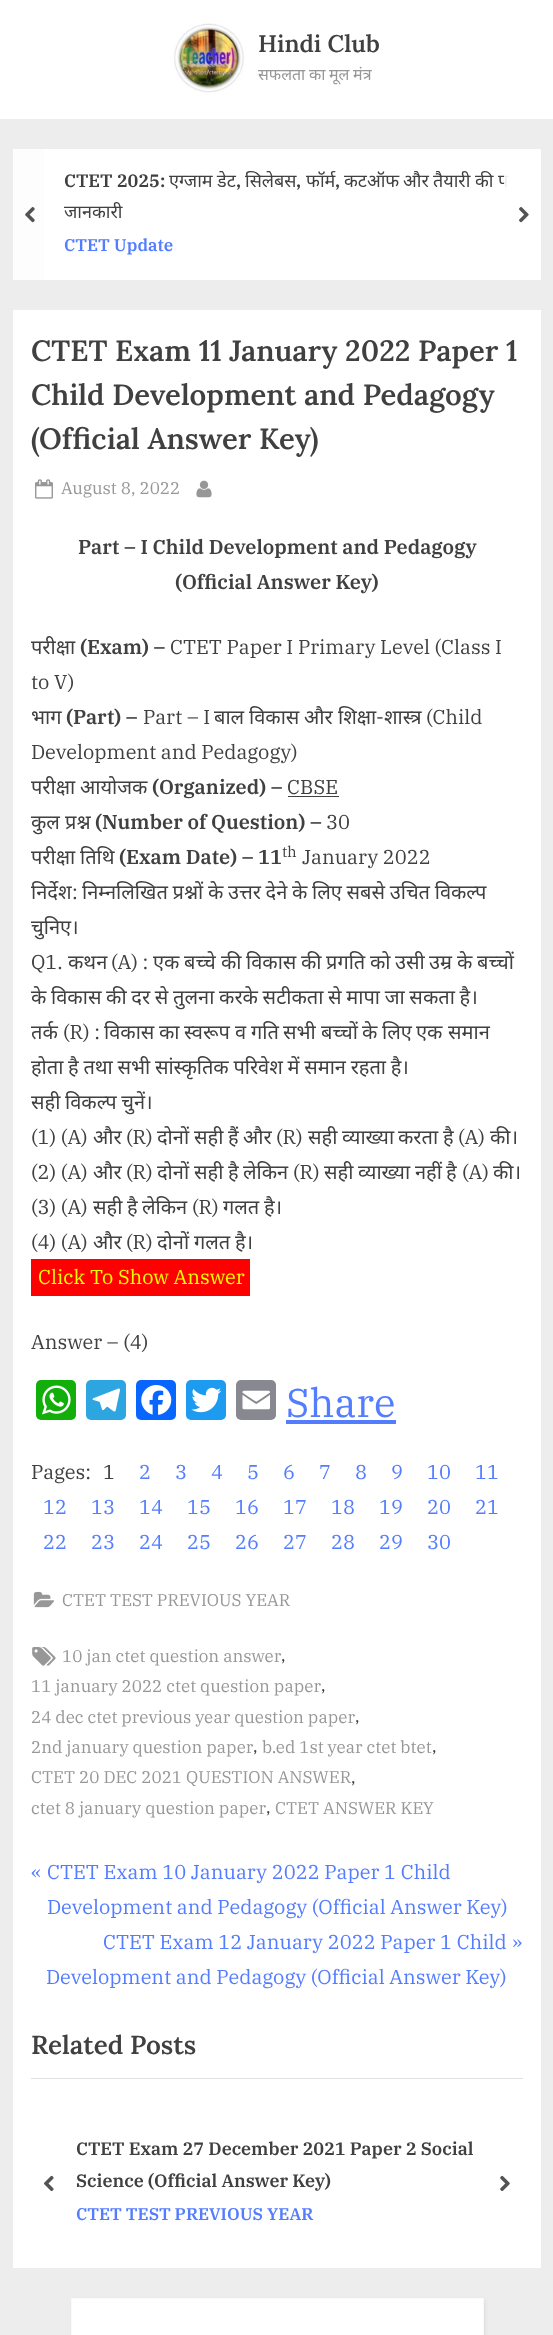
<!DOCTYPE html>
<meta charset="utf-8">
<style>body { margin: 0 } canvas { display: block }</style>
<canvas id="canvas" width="553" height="2335"></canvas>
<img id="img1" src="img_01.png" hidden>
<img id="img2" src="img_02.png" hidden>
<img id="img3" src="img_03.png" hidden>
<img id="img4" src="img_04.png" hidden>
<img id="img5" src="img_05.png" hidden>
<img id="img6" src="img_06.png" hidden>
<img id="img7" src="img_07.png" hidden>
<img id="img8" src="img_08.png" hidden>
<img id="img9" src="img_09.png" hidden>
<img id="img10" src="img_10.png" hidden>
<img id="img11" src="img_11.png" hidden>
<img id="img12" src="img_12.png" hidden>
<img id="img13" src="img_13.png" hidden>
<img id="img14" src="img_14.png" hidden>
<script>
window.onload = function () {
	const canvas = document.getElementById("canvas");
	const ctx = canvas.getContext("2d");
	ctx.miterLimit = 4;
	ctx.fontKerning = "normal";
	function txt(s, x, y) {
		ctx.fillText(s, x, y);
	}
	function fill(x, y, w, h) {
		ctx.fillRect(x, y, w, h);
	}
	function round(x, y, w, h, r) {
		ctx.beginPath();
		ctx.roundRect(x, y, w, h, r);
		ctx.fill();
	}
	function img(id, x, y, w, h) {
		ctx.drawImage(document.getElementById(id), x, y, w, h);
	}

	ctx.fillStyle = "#EDEDED";
	fill(0, 0, 553, 2335);
	ctx.fillStyle = "#FDFDFD";
	fill(13, 149, 31, 131);
	ctx.fillStyle = "#FFFFFF";
	fill(0, 0, 553, 119);
	img("img1", 174, 23, 70, 70);
	fill(44, 149, 497, 131);
	img("img2", 25, 207, 10, 16);
	img("img3", 519, 207, 10, 16);
	fill(13, 310, 528, 1958);
	img("img4", 35, 479, 18, 20);
	img("img5", 196, 480, 16, 18);
	ctx.fillStyle = "#404040";
	fill(288, 796, 51, 1);
	ctx.fillStyle = "#FF0000";
	fill(31, 1259, 219, 37);
	ctx.fillStyle = "#12AF0A";
	round(36, 1380, 40, 40, 5);
	img("img6", 42, 1385, 29, 30);
	ctx.fillStyle = "#2CA5E0";
	round(86, 1380, 40, 40, 5);
	img("img7", 92, 1388, 28, 24);
	ctx.fillStyle = "#0866FF";
	round(136, 1380, 40, 40, 5);
	img("img8", 141, 1385, 31, 30);
	ctx.fillStyle = "#1D9BF0";
	round(186, 1380, 40, 40, 5);
	img("img9", 191, 1387, 31, 26);
	ctx.fillStyle = "#888990";
	round(236, 1380, 40, 40, 5);
	img("img10", 242, 1390, 28, 20);
	ctx.fillStyle = "#537CFF";
	fill(286, 1420, 110, 4);
	img("img11", 33, 1591, 22, 17);
	img("img12", 32, 1647, 24, 19);
	ctx.fillStyle = "#E1E1E1";
	fill(31, 2078, 492, 1);
	img("img13", 44, 2175, 10, 17);
	img("img14", 500, 2175, 10, 17);
	ctx.fillStyle = "rgba(0, 0, 0, 0.07)";
	ctx.filter = "blur(2px)";
	ctx.beginPath();
	ctx.rect(73, 2300, 412, 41);
	ctx.fill();
	ctx.filter = "none";
	ctx.fillStyle = "#FFFFFF";
	ctx.beginPath();
	ctx.rect(71.5, 2298.5, 412, 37);
	ctx.fill();
	ctx.strokeStyle = "#FAFAFA";
	ctx.stroke();
	ctx.font = "600 24px Lora";
	ctx.fillStyle = "#404040";
	txt("Hindi Club", 258, 52);
	ctx.wordSpacing = "-0.5px";
	ctx.font = "16px Noto Sans";
	ctx.fillStyle = "#979797";
	txt("सफलता का मूल मंत्र", 258, 80);
	ctx.wordSpacing = "0px";
	ctx.font = "600 18px IBM Plex Serif";
	ctx.fillStyle = "#404040";
	txt("CTET 2025:", 64, 187);
	ctx.font = "18px Noto Sans";
	txt("एग्जाम", 169, 187);
	txt("डेट", 217, 187);
	ctx.font = "600 18px IBM Plex Serif";
	txt(",", 236, 187);
	ctx.font = "18px Noto Sans";
	txt("सिलेबस", 245, 187);
	ctx.font = "600 18px IBM Plex Serif";
	txt(",", 296, 187);
	ctx.font = "18px Noto Sans";
	txt("फॉर्म", 306, 187);
	ctx.font = "600 18px IBM Plex Serif";
	txt(",", 335, 187);
	ctx.font = "18px Noto Sans";
	txt("कटऑफ", 344, 187);
	txt("और", 403, 187);
	txt("तैयारी", 433, 187);
	txt("की", 475, 187);
	txt("प", 498, 187);
	txt("जानकारी", 64, 218);
	ctx.font = "600 17px IBM Plex Serif";
	ctx.fillStyle = "#537CFF";
	txt("CTET Update", 64, 251);
	ctx.fillStyle = "rgba(255, 255, 255, 0.9)";
	fill(504, 175, 5, 12);
	ctx.font = "600 29.25px Lora";
	ctx.fillStyle = "#404040";
	txt("CTET Exam 11 January 2022 Paper 1", 31, 361);
	txt("Child Development and Pedagogy", 31, 405);
	txt("(Official Answer Key)", 31, 449);
	ctx.font = "17px IBM Plex Serif";
	ctx.fillStyle = "#979797";
	txt("August 8, 2022", 61, 494);
	ctx.font = "600 20px IBM Plex Serif";
	ctx.fillStyle = "#404040";
	txt("Part – I Child Development and Pedagogy", 78, 554);
	txt("(Official Answer Key)", 175, 589);
	ctx.font = "20px Noto Sans";
	txt("परीक्षा", 31, 654);
	ctx.font = "600 20px IBM Plex Serif";
	txt("(Exam) –", 80, 654);
	ctx.font = "20px IBM Plex Serif";
	txt("CTET Paper I Primary Level (Class I", 170, 654);
	txt("to V)", 31, 689);
	ctx.font = "20px Noto Sans";
	txt("भाग", 31, 724);
	ctx.font = "600 20px IBM Plex Serif";
	txt("(Part) –", 66, 724);
	ctx.font = "20px IBM Plex Serif";
	txt("Part – I", 143, 724);
	ctx.font = "20px Noto Sans";
	txt("बाल", 214, 724);
	txt("विकास", 249, 724);
	txt("और", 304, 724);
	txt("शिक्षा", 338, 724);
	ctx.font = "20px IBM Plex Serif";
	txt("-", 376, 724);
	ctx.font = "20px Noto Sans";
	txt("शास्त्र", 384, 724);
	ctx.font = "20px IBM Plex Serif";
	txt("(Child", 426, 724);
	txt("Development and Pedagogy)", 31, 759);
	ctx.font = "20px Noto Sans";
	txt("परीक्षा", 31, 794);
	txt("आयोजक", 80, 794);
	ctx.font = "600 20px IBM Plex Serif";
	txt("(Organized) –", 152, 794);
	ctx.font = "20px IBM Plex Serif";
	txt("CBSE", 287, 794);
	ctx.font = "20px Noto Sans";
	txt("कुल", 31, 829);
	txt("प्रश्न", 65, 829);
	ctx.font = "600 20px IBM Plex Serif";
	txt("(Number of Question) –", 95, 829);
	ctx.font = "20px IBM Plex Serif";
	txt("30", 326, 829);
	ctx.font = "20px Noto Sans";
	txt("परीक्षा", 31, 864);
	txt("तिथि", 80, 864);
	ctx.font = "600 20px IBM Plex Serif";
	txt("(Exam Date) – 11", 119, 864);
	ctx.font = "15px IBM Plex Serif";
	txt("th", 282, 857);
	ctx.font = "20px IBM Plex Serif";
	txt("January 2022", 302, 864);
	ctx.font = "20px Noto Sans";
	txt("निर्देश", 31, 899);
	ctx.font = "20px IBM Plex Serif";
	txt(":", 72, 899);
	ctx.wordSpacing = "-0.5px";
	ctx.font = "20px Noto Sans";
	txt("निम्नलिखित प्रश्नों के उत्तर देने के लिए सबसे उचित विकल्प", 82, 899);
	ctx.wordSpacing = "0px";
	txt("चुनिए।", 31, 934);
	ctx.font = "20px IBM Plex Serif";
	txt("Q1.", 31, 969);
	ctx.font = "20px Noto Sans";
	txt("कथन", 68, 969);
	ctx.font = "20px IBM Plex Serif";
	txt("(A) :", 111, 969);
	ctx.font = "20px Noto Sans";
	txt("एक", 153, 969);
	txt("बच्चे", 184, 969);
	txt("की", 221, 969);
	txt("विकास", 246, 969);
	txt("की", 301, 969);
	txt("प्रगति", 326, 969);
	txt("को", 370, 969);
	txt("उसी", 395, 969);
	txt("उम्र", 429, 969);
	txt("के", 457, 969);
	txt("बच्चों", 477, 969);
	ctx.wordSpacing = "-0.5px";
	txt("के विकास की दर से तुलना करके सटीकता से मापा जा सकता है।", 31, 1004);
	ctx.wordSpacing = "0px";
	txt("तर्क", 31, 1039);
	ctx.font = "20px IBM Plex Serif";
	txt("(R) :", 63, 1039);
	ctx.font = "20px Noto Sans";
	txt("विकास", 104, 1039);
	txt("का", 159, 1039);
	txt("स्वरूप", 184, 1039);
	txt("व", 235, 1039);
	txt("गति", 251, 1039);
	txt("सभी", 283, 1039);
	txt("बच्चों", 321, 1039);
	txt("के", 362, 1039);
	txt("लिए", 382, 1039);
	txt("एक", 416, 1039);
	txt("समान", 448, 1039);
	ctx.wordSpacing = "-0.5px";
	txt("होता है तथा सभी सांस्कृतिक परिवेश में समान रहता है।", 31, 1074);
	txt("सही विकल्प चुनें।", 31, 1109);
	ctx.wordSpacing = "0px";
	ctx.font = "20px IBM Plex Serif";
	txt("(1) (A)", 31, 1144);
	ctx.font = "20px Noto Sans";
	txt("और", 93, 1144);
	ctx.font = "20px IBM Plex Serif";
	txt("(R)", 126, 1144);
	ctx.font = "20px Noto Sans";
	txt("दोनों", 157, 1144);
	txt("सही", 194, 1144);
	txt("हैं", 228, 1144);
	txt("और", 243, 1144);
	ctx.font = "20px IBM Plex Serif";
	txt("(R)", 276, 1144);
	ctx.font = "20px Noto Sans";
	txt("सही", 308, 1144);
	txt("व्याख्या", 342, 1144);
	txt("करता", 398, 1144);
	txt("है", 443, 1144);
	ctx.font = "20px IBM Plex Serif";
	txt("(A)", 458, 1144);
	ctx.font = "20px Noto Sans";
	txt("की।", 490, 1144);
	ctx.font = "20px IBM Plex Serif";
	txt("(2) (A)", 31, 1179);
	ctx.font = "20px Noto Sans";
	txt("और", 93, 1179);
	ctx.font = "20px IBM Plex Serif";
	txt("(R)", 126, 1179);
	ctx.font = "20px Noto Sans";
	txt("दोनों", 157, 1179);
	txt("सही", 194, 1179);
	txt("है", 228, 1179);
	txt("लेकिन", 243, 1179);
	ctx.font = "20px IBM Plex Serif";
	txt("(R)", 293, 1179);
	ctx.font = "20px Noto Sans";
	txt("सही", 324, 1179);
	txt("व्याख्या", 358, 1179);
	txt("नहीं", 415, 1179);
	txt("है", 446, 1179);
	ctx.font = "20px IBM Plex Serif";
	txt("(A)", 462, 1179);
	ctx.font = "20px Noto Sans";
	txt("की।", 493, 1179);
	ctx.font = "20px IBM Plex Serif";
	txt("(3) (A)", 31, 1214);
	ctx.font = "20px Noto Sans";
	txt("सही", 93, 1214);
	txt("है", 127, 1214);
	txt("लेकिन", 142, 1214);
	ctx.font = "20px IBM Plex Serif";
	txt("(R)", 192, 1214);
	ctx.font = "20px Noto Sans";
	txt("गलत", 223, 1214);
	txt("है।", 264, 1214);
	ctx.font = "20px IBM Plex Serif";
	txt("(4) (A)", 31, 1249);
	ctx.font = "20px Noto Sans";
	txt("और", 93, 1249);
	ctx.font = "20px IBM Plex Serif";
	txt("(R)", 126, 1249);
	ctx.font = "20px Noto Sans";
	txt("दोनों", 157, 1249);
	txt("गलत", 194, 1249);
	txt("है।", 235, 1249);
	ctx.font = "20px IBM Plex Serif";
	ctx.fillStyle = "#F2FD01";
	txt("Click To Show Answer", 38, 1284);
	ctx.fillStyle = "#404040";
	txt("Answer – (4)", 31, 1349);
	ctx.font = "40px IBM Plex Serif";
	ctx.fillStyle = "#537CFF";
	txt("Share", 286, 1417);
	ctx.font = "20px IBM Plex Serif";
	ctx.fillStyle = "#404040";
	txt("Pages:", 31, 1479);
	txt("1", 103, 1479);
	ctx.fillStyle = "#537CFF";
	txt("2", 139, 1479);
	txt("3", 175, 1479);
	txt("4", 211, 1479);
	txt("5", 247, 1479);
	txt("6", 283, 1479);
	txt("7", 319, 1479);
	txt("8", 355, 1479);
	txt("9", 391, 1479);
	txt("10", 427, 1479);
	txt("11", 475, 1479);
	txt("12", 43, 1514);
	txt("13", 91, 1514);
	txt("14", 139, 1514);
	txt("15", 187, 1514);
	txt("16", 235, 1514);
	txt("17", 283, 1514);
	txt("18", 331, 1514);
	txt("19", 379, 1514);
	txt("20", 427, 1514);
	txt("21", 475, 1514);
	txt("22", 43, 1549);
	txt("23", 91, 1549);
	txt("24", 139, 1549);
	txt("25", 187, 1549);
	txt("26", 235, 1549);
	txt("27", 283, 1549);
	txt("28", 331, 1549);
	txt("29", 379, 1549);
	txt("30", 427, 1549);
	ctx.font = "17px IBM Plex Serif";
	ctx.fillStyle = "#979797";
	txt("CTET TEST PREVIOUS YEAR", 62, 1606);
	txt("10 jan ctet question answer", 62, 1662);
	ctx.fillStyle = "#404040";
	txt(",", 281, 1661);
	ctx.fillStyle = "#979797";
	txt("11 january 2022 ctet question paper", 31, 1692);
	ctx.fillStyle = "#404040";
	txt(",", 321, 1691);
	ctx.fillStyle = "#979797";
	txt("24 dec ctet previous year question paper", 31, 1723);
	ctx.fillStyle = "#404040";
	txt(",", 355, 1722);
	ctx.fillStyle = "#979797";
	txt("2nd january question paper", 31, 1753);
	ctx.fillStyle = "#404040";
	txt(",", 253, 1752);
	ctx.fillStyle = "#979797";
	txt("b.ed 1st year ctet btet", 262, 1753);
	ctx.fillStyle = "#404040";
	txt(",", 432, 1752);
	ctx.fillStyle = "#979797";
	txt("CTET 20 DEC 2021 QUESTION ANSWER", 31, 1783);
	ctx.fillStyle = "#404040";
	txt(",", 351, 1783);
	ctx.fillStyle = "#979797";
	txt("ctet 8 january question paper", 31, 1814);
	ctx.fillStyle = "#404040";
	txt(",", 266, 1813);
	ctx.fillStyle = "#979797";
	txt("CTET ANSWER KEY", 275, 1814);
	ctx.font = "20px IBM Plex Serif";
	ctx.fillStyle = "#537CFF";
	txt("«", 31, 1879);
	txt("CTET Exam 10 January 2022 Paper 1 Child", 47, 1879);
	txt("Development and Pedagogy (Official Answer Key)", 47, 1914);
	txt("CTET Exam 12 January 2022 Paper 1 Child", 103, 1949);
	txt("Development and Pedagogy (Official Answer Key)", 46, 1984);
	txt("»", 512, 1949);
	ctx.font = "600 26px Lora";
	ctx.fillStyle = "#404040";
	txt("Related Posts", 31, 2054);
	ctx.font = "600 18px IBM Plex Serif";
	txt("CTET Exam 27 December 2021 Paper 2 Social", 76, 2155);
	txt("Science (Official Answer Key)", 76, 2187);
	ctx.font = "600 17px IBM Plex Serif";
	ctx.fillStyle = "#537CFF";
	txt("CTET TEST PREVIOUS YEAR", 76, 2220);
};
</script>
